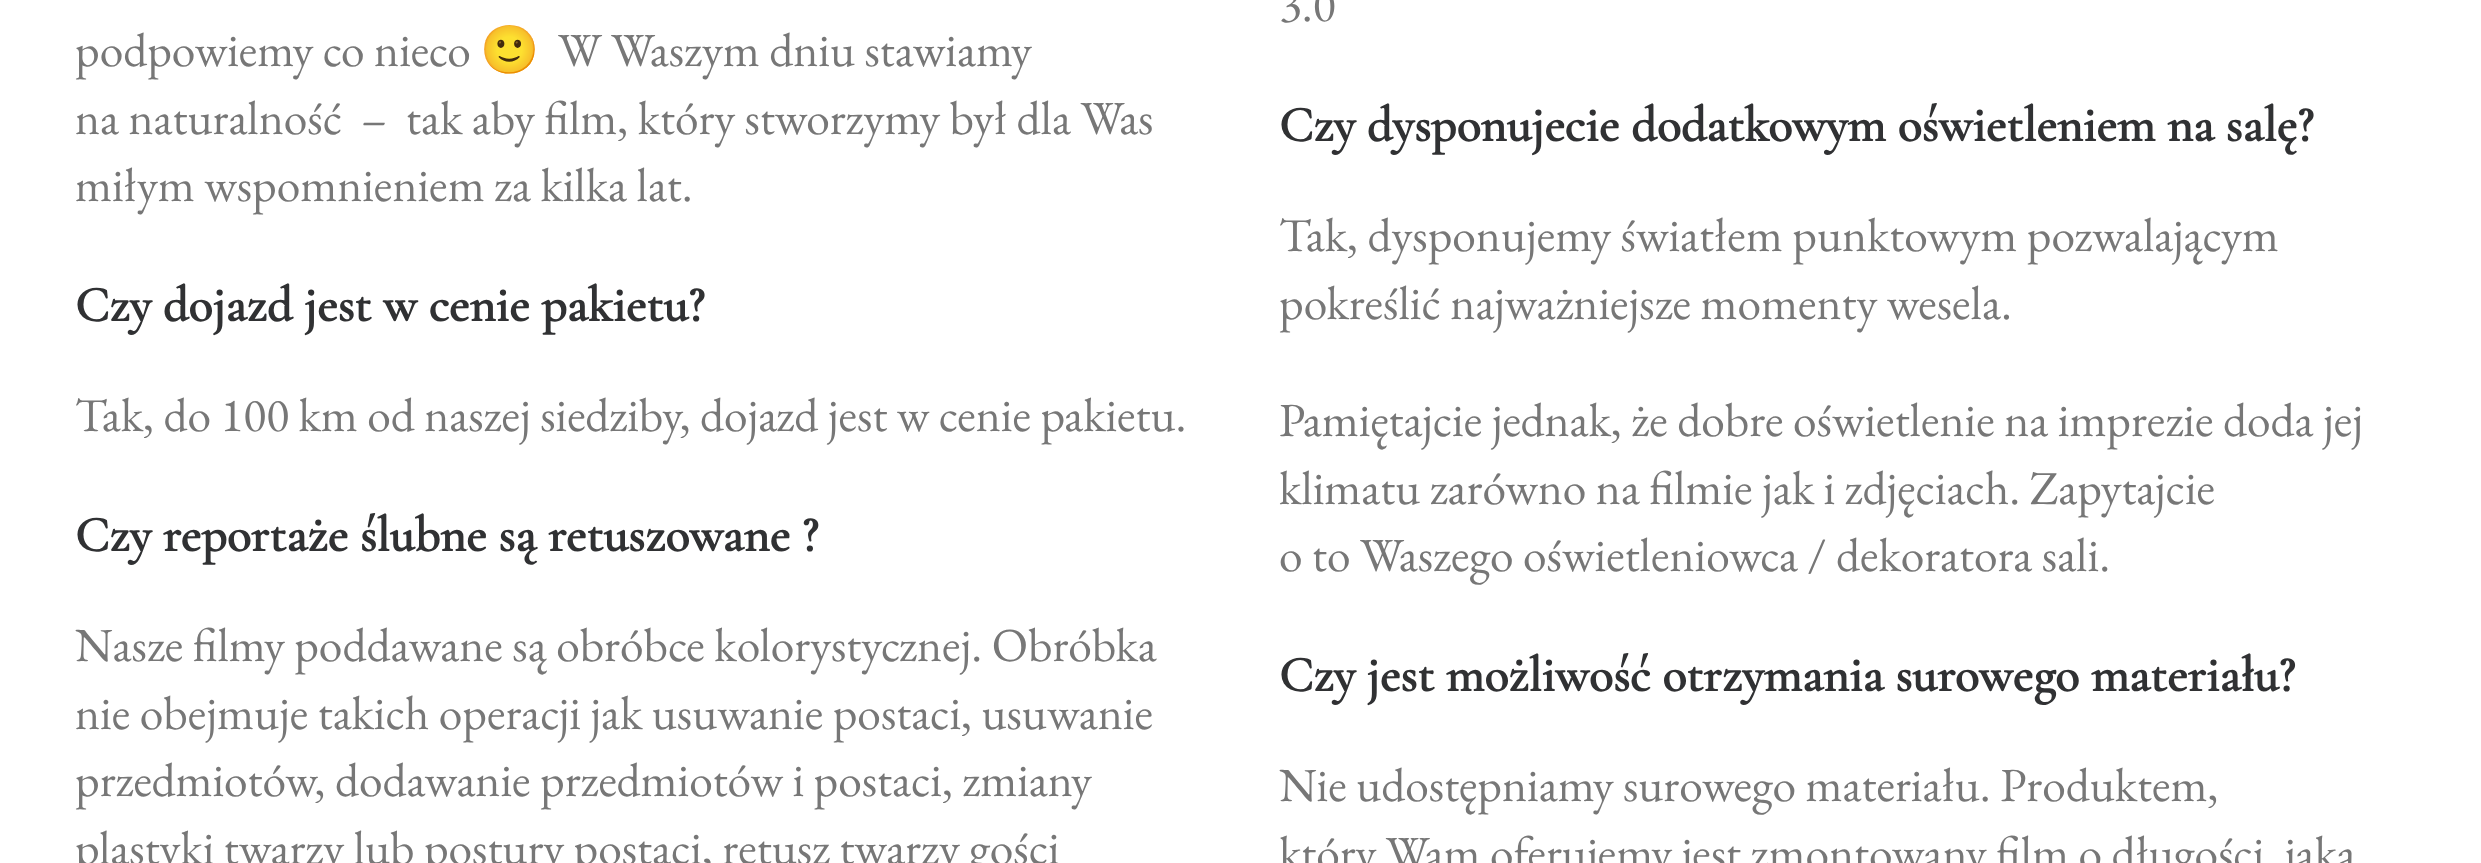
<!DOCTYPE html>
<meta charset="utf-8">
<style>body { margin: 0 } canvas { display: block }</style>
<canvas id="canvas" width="2481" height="863"></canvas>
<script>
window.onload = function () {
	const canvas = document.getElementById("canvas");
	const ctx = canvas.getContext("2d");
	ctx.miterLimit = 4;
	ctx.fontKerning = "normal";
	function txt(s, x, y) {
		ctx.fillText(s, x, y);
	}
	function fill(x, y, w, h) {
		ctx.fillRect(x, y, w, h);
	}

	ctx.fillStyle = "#FFFFFF";
	fill(0, 0, 2481, 863);
	ctx.font = "47.5px EB Garamond";
	ctx.fillStyle = "#777777";
	txt("podpowiemy co nieco", 75, 66);
	ctx.font = "47.5px Noto Color Emoji";
	txt("🙂", 480, 66);
	ctx.font = "47.5px EB Garamond";
	txt("W Waszym dniu stawiamy", 558, 66);
	txt("na naturalność  –  tak aby film, który stworzymy był dla Was", 75, 134);
	txt("miłym wspomnieniem za kilka lat.", 75, 201);
	ctx.font = "bold 50px Cormorant Garamond";
	ctx.fillStyle = "#303133";
	txt("Czy dojazd jest w cenie pakietu?", 75, 321);
	ctx.font = "47.5px EB Garamond";
	ctx.fillStyle = "#777777";
	txt("Tak, do 100 km od naszej siedziby, dojazd jest w cenie pakietu.", 75, 431);
	ctx.font = "bold 50px Cormorant Garamond";
	ctx.fillStyle = "#303133";
	txt("Czy reportaże ślubne są retuszowane ?", 75, 551);
	ctx.font = "47.5px EB Garamond";
	ctx.fillStyle = "#777777";
	txt("Nasze filmy poddawane są obróbce kolorystycznej. Obróbka", 75, 661);
	txt("nie obejmuje takich operacji jak usuwanie postaci, usuwanie", 75, 729);
	txt("przedmiotów, dodawanie przedmiotów i postaci, zmiany", 75, 796);
	txt("plastyki twarzy lub postury postaci, retusz twarzy gości", 75, 864);
	txt("3.0", 1279, 21);
	ctx.font = "bold 50px Cormorant Garamond";
	ctx.fillStyle = "#303133";
	txt("Czy dysponujecie dodatkowym oświetleniem na salę?", 1279, 141);
	ctx.font = "47.5px EB Garamond";
	ctx.fillStyle = "#777777";
	txt("Tak, dysponujemy światłem punktowym pozwalającym", 1279, 251);
	txt("pokreślić najważniejsze momenty wesela.", 1279, 319);
	txt("Pamiętajcie jednak, że dobre oświetlenie na imprezie doda jej", 1279, 436);
	txt("klimatu zarówno na filmie jak i zdjęciach. Zapytajcie", 1279, 504);
	txt("o to Waszego oświetleniowca / dekoratora sali.", 1279, 571);
	ctx.font = "bold 50px Cormorant Garamond";
	ctx.fillStyle = "#303133";
	txt("Czy jest możliwość otrzymania surowego materiału?", 1279, 691);
	ctx.font = "47.5px EB Garamond";
	ctx.fillStyle = "#777777";
	txt("Nie udostępniamy surowego materiału. Produktem,", 1279, 801);
	txt("który Wam oferujemy jest zmontowany film o długości, jaką", 1279, 869);
};
</script>
